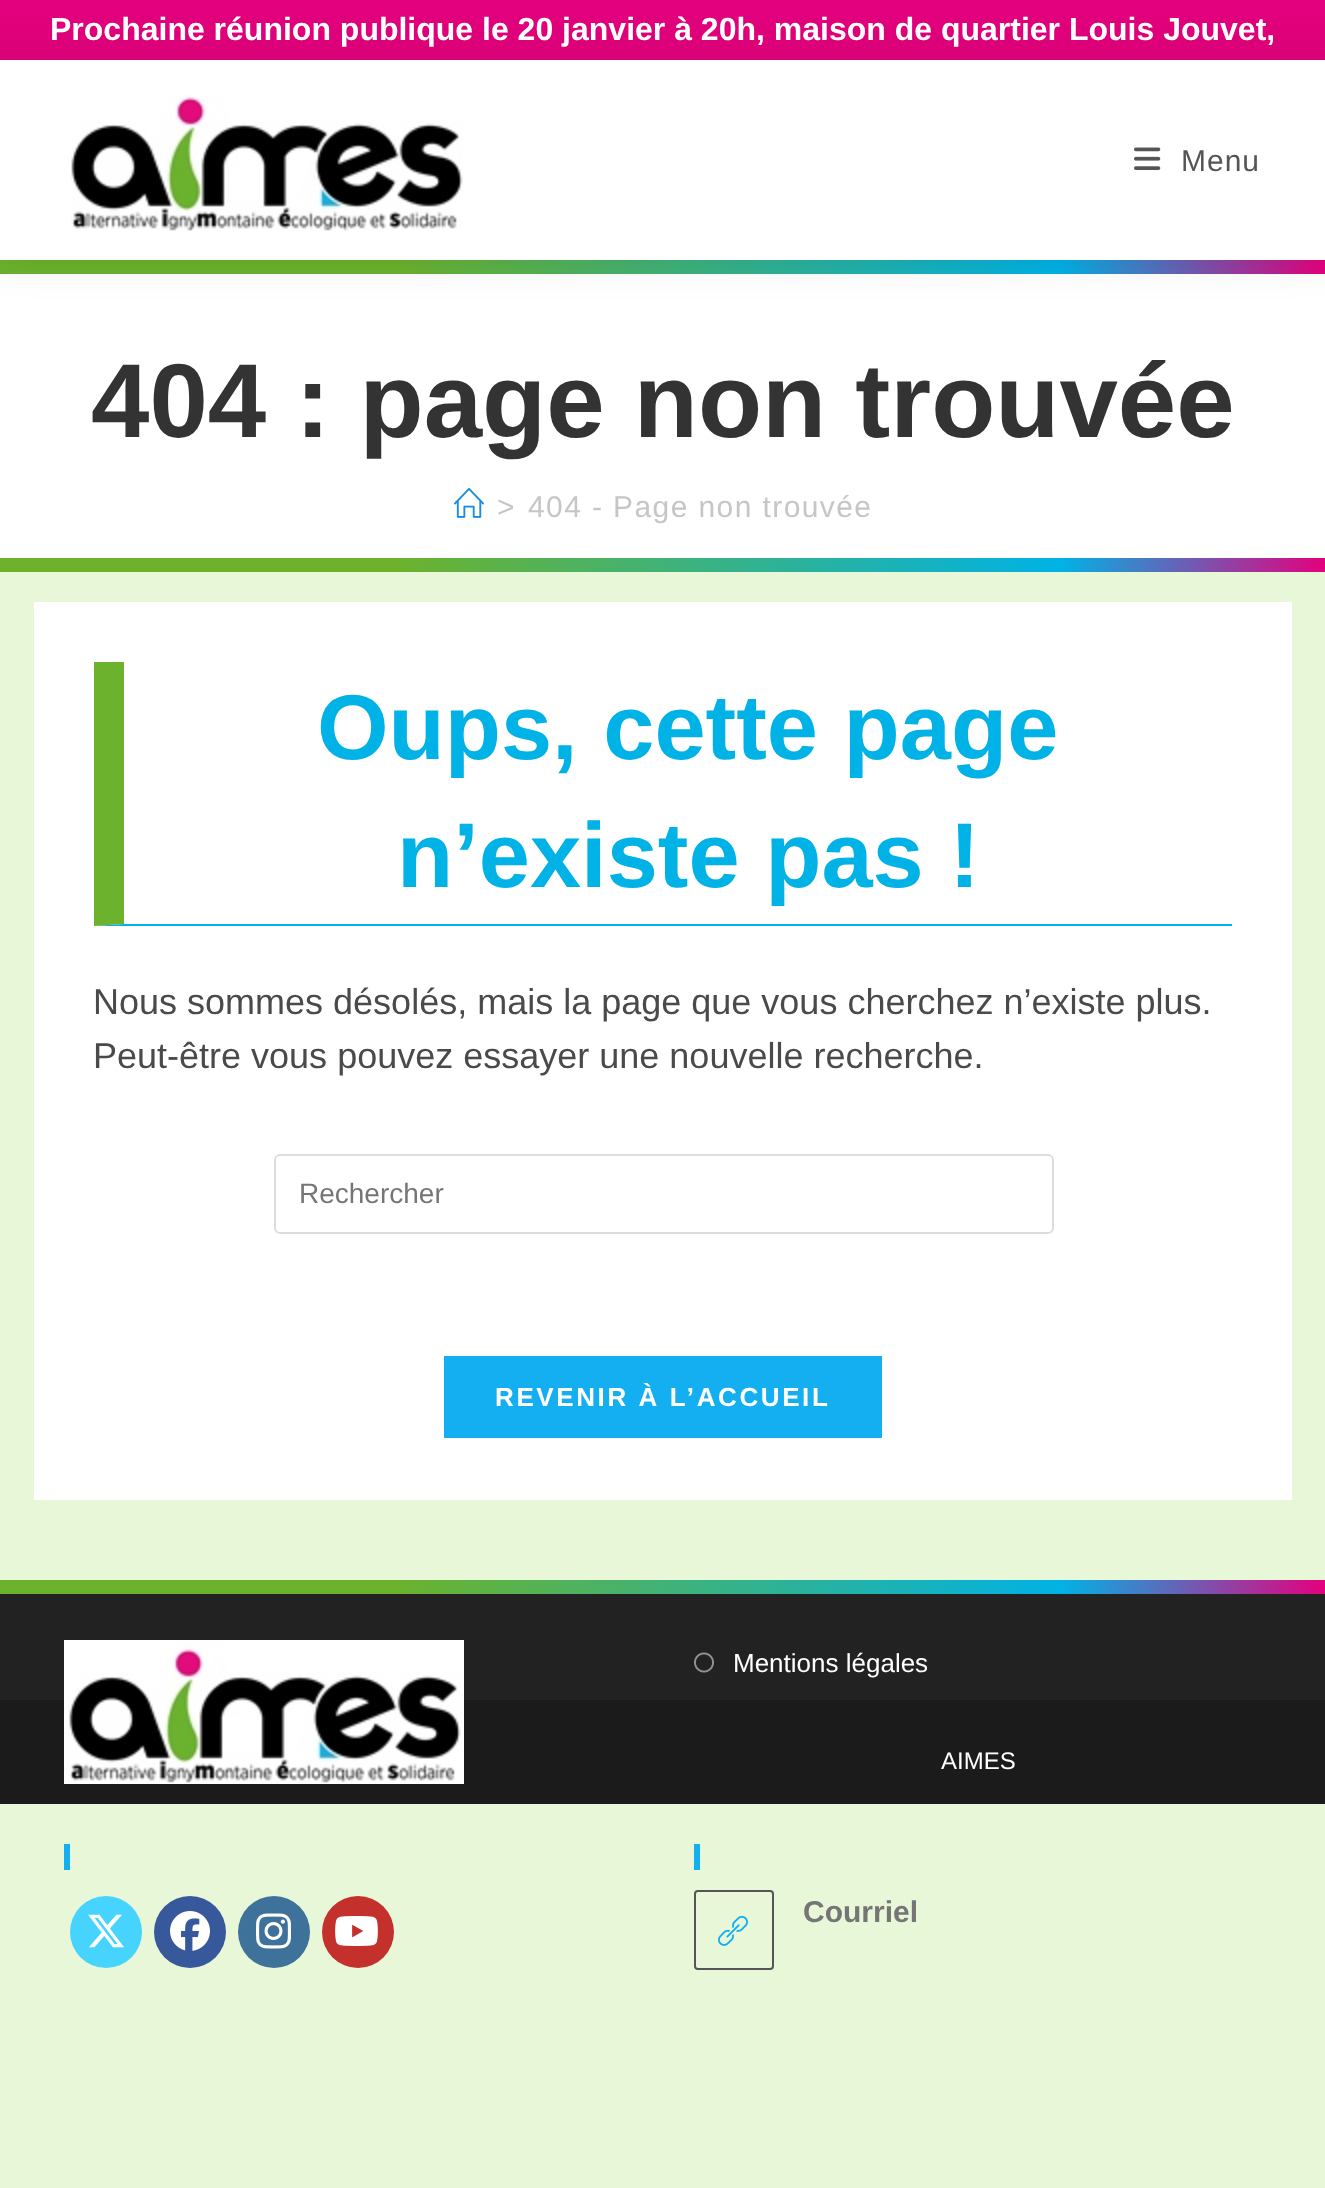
<!DOCTYPE html>
<meta charset="utf-8">
<style>body { margin: 0 } canvas { display: block }</style>
<canvas id="canvas" width="1325" height="2188"></canvas>
<img id="img1" src="img_01.png" hidden>
<img id="img2" src="img_02.png" hidden>
<img id="img3" src="img_03.png" hidden>
<img id="img4" src="img_04.png" hidden>
<img id="img5" src="img_05.png" hidden>
<img id="img6" src="img_06.png" hidden>
<img id="img7" src="img_07.png" hidden>
<img id="img8" src="img_08.png" hidden>
<img id="img9" src="img_09.png" hidden>
<img id="img10" src="img_10.png" hidden>
<script>
window.onload = function () {
	const canvas = document.getElementById("canvas");
	const ctx = canvas.getContext("2d");
	ctx.miterLimit = 4;
	ctx.fontKerning = "normal";
	function txt(s, x, y) {
		ctx.fillText(s, x, y);
	}
	function fill(x, y, w, h) {
		ctx.fillRect(x, y, w, h);
	}
	function img(id, x, y, w, h) {
		ctx.drawImage(document.getElementById(id), x, y, w, h);
	}
	let gradient;

	ctx.fillStyle = "#E9F7D9";
	fill(0, 0, 1325, 2188);
	ctx.fillStyle = "#FFFFFF";
	fill(0, 274, 1325, 284);
	gradient = ctx.createLinearGradient(0, 267, 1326, 267);
	gradient.addColorStop(0.3, "#6CB22D");
	gradient.addColorStop(0.8, "#00B2E5");
	gradient.addColorStop(1, "#E5007D");
	ctx.fillStyle = gradient;
	fill(0, 260, 1325, 14);
	ctx.fillStyle = "rgba(0, 0, 0, 0.1)";
	ctx.filter = "blur(20px)";
	ctx.beginPath();
	ctx.rect(0, 60, 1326, 200);
	ctx.fill();
	ctx.filter = "none";
	gradient = ctx.createLinearGradient(663, 0, 663, 100);
	gradient.addColorStop(0, "#E5007D");
	gradient.addColorStop(1, "#D10273");
	ctx.fillStyle = gradient;
	fill(0, 0, 1325, 60);
	ctx.fillStyle = "#FFFFFF";
	fill(0, 60, 1325, 200);
	img("img1", 71, 95, 392, 136);
	img("img2", 1134, 147, 27, 23);
	img("img3", 454, 487, 30, 31);
	gradient = ctx.createLinearGradient(0, 565, 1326, 565);
	gradient.addColorStop(0.3, "#6CB22D");
	gradient.addColorStop(0.8, "#00B2E5");
	gradient.addColorStop(1, "#E5007D");
	ctx.fillStyle = gradient;
	fill(0, 558, 1325, 14);
	ctx.fillStyle = "#FFFFFF";
	fill(34, 602, 1258, 898);
	ctx.fillStyle = "#00B2E5";
	ctx.beginPath();
	ctx.moveTo(1232, 926);
	ctx.lineTo(94, 926);
	ctx.lineTo(124, 924);
	ctx.lineTo(1232, 924);
	ctx.closePath();
	ctx.fill();
	ctx.fillStyle = "#6CB22D";
	ctx.beginPath();
	ctx.moveTo(94, 926);
	ctx.lineTo(94, 662);
	ctx.lineTo(124, 662);
	ctx.lineTo(124, 924);
	ctx.closePath();
	ctx.fill();
	ctx.beginPath();
	ctx.roundRect(275, 1155, 778, 78, 5);
	ctx.strokeStyle = "#DDDDDD";
	ctx.lineWidth = 2;
	ctx.stroke();
	ctx.fillStyle = "#13AFF0";
	fill(444, 1356, 438, 82);
	ctx.fillStyle = "#222222";
	fill(0, 1594, 1325, 106);
	gradient = ctx.createLinearGradient(0, 1587, 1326, 1587);
	gradient.addColorStop(0.3, "#6CB22D");
	gradient.addColorStop(0.8, "#00B2E5");
	gradient.addColorStop(1, "#E5007D");
	ctx.fillStyle = gradient;
	fill(0, 1580, 1325, 14);
	ctx.fillStyle = "#1B1B1B";
	fill(0, 1700, 1325, 104);
	img("img4", 64, 1640, 400, 144);
	img("img5", 694, 1652, 20, 21);
	ctx.fillStyle = "#13AFF0";
	fill(64, 1844, 6, 26);
	ctx.fillStyle = "#46D4FE";
	ctx.beginPath();
	ctx.arc(106, 1932, 36, 0, Math.PI * 2);
	ctx.fill();
	img("img6", 88, 1914, 36, 34);
	ctx.fillStyle = "#37589B";
	ctx.beginPath();
	ctx.arc(190, 1932, 36, 0, Math.PI * 2);
	ctx.fill();
	img("img7", 170, 1911, 40, 40);
	ctx.fillStyle = "#3F729B";
	ctx.beginPath();
	ctx.arc(274, 1932, 36, 0, Math.PI * 2);
	ctx.fill();
	img("img8", 256, 1913, 35, 36);
	ctx.fillStyle = "#C4302B";
	ctx.beginPath();
	ctx.arc(358, 1932, 36, 0, Math.PI * 2);
	ctx.fill();
	img("img9", 335, 1916, 43, 30);
	ctx.fillStyle = "#13AFF0";
	fill(694, 1844, 6, 26);
	ctx.beginPath();
	ctx.roundRect(695, 1891, 78, 78, 3);
	ctx.strokeStyle = "#555555";
	ctx.stroke();
	img("img10", 718, 1915, 30, 31);
	ctx.font = "bold 32px Liberation Sans";
	ctx.fillStyle = "#FFFFFF";
	txt("Prochaine réunion publique le 20 janvier à 20h, maison de quartier Louis Jouvet,", 50, 40);
	ctx.letterSpacing = "1px";
	ctx.font = "30px Liberation Sans";
	ctx.fillStyle = "#555555";
	txt("Menu", 1181, 171);
	ctx.letterSpacing = "0px";
	ctx.font = "bold 105px Liberation Sans";
	ctx.fillStyle = "#333333";
	txt("404 : page non trouvée", 91, 437);
	ctx.letterSpacing = "1.4px";
	ctx.font = "30px Liberation Sans";
	ctx.fillStyle = "#C6C6C6";
	txt(">", 497, 517);
	txt("404 - Page non trouvée", 528, 517);
	ctx.letterSpacing = "0px";
	ctx.font = "bold 92px Liberation Sans";
	ctx.fillStyle = "#00B2E5";
	txt("Oups, cette page", 317, 759);
	txt("n’existe pas !", 397, 887);
	ctx.font = "36px Liberation Sans";
	ctx.fillStyle = "#4A4A4A";
	txt("Nous sommes désolés, mais la page que vous cherchez n’existe plus.", 93, 1014);
	txt("Peut-être vous pouvez essayer une nouvelle recherche.", 93, 1068);
	ctx.font = "28px Liberation Sans";
	ctx.fillStyle = "#757575";
	txt("Rechercher", 299, 1203);
	ctx.letterSpacing = "2.6px";
	ctx.font = "bold 26px Liberation Sans";
	ctx.fillStyle = "#FFFFFF";
	txt("REVENIR À L’ACCUEIL", 495, 1406);
	ctx.letterSpacing = "0px";
	ctx.font = "26px Liberation Sans";
	txt("Mentions légales", 733, 1672);
	ctx.font = "bold 30px Liberation Sans";
	ctx.fillStyle = "#757575";
	txt("Courriel", 803, 1922);
	ctx.font = "24px Liberation Sans";
	ctx.fillStyle = "#FFFFFF";
	txt("AIMES", 941, 1769);
};
</script>
